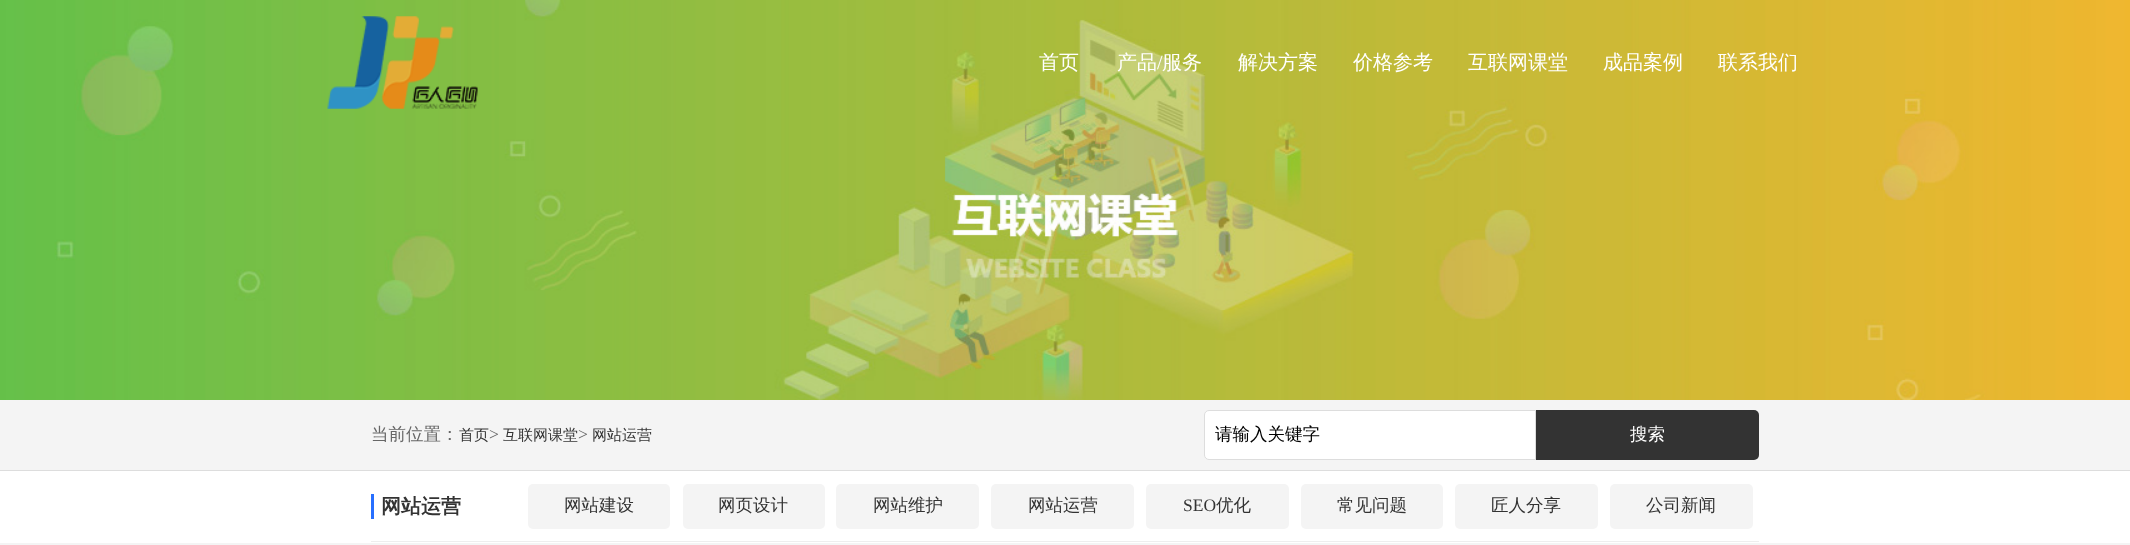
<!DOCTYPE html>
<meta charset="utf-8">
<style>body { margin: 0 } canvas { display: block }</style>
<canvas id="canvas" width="2130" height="545"></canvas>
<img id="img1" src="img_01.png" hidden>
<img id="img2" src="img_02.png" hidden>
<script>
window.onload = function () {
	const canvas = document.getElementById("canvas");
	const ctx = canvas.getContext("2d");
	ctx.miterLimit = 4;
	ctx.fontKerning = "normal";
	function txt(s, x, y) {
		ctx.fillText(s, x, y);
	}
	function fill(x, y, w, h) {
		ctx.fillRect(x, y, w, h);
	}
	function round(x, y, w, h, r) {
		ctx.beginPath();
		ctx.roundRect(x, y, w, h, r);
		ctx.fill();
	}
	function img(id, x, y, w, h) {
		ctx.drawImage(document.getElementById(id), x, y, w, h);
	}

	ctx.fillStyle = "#F4F4F4";
	fill(0, 0, 2130, 545);
	img("img1", 0, 0, 2130, 400);
	img("img2", 327, 16, 151, 93);
	ctx.fillStyle = "#DDDDDD";
	fill(0, 470, 2130, 1);
	ctx.fillStyle = "#FFFFFF";
	ctx.beginPath();
	ctx.roundRect(1204.5, 410.5, 331, 49, [4.5, 0, 0, 4.5]);
	ctx.fill();
	ctx.strokeStyle = "#DDDDDD";
	ctx.stroke();
	ctx.fillStyle = "#333333";
	ctx.beginPath();
	ctx.roundRect(1536, 410, 223, 50, [0, 5, 5, 0]);
	ctx.fill();
	ctx.fillStyle = "#FFFFFF";
	fill(0, 471, 2130, 72);
	ctx.fillStyle = "#EEEEEE";
	fill(371, 541, 1388, 1);
	ctx.fillStyle = "#276FFF";
	fill(371, 494, 3, 25);
	ctx.fillStyle = "#F4F4F4";
	round(528, 484, 142, 45, 5);
	round(683, 484, 142, 45, 5);
	round(836, 484, 143, 45, 5);
	round(991, 484, 143, 45, 5);
	round(1146, 484, 143, 45, 5);
	round(1301, 484, 142, 45, 5);
	round(1455, 484, 143, 45, 5);
	round(1610, 484, 143, 45, 5);
	ctx.font = "500 20px WenQuanYi Zen Hei";
	ctx.fillStyle = "#FFFFFF";
	txt("首页", 1039, 69);
	txt("产品", 1117, 69);
	ctx.font = "20px Liberation Serif";
	txt("/", 1157, 69);
	ctx.font = "500 20px WenQuanYi Zen Hei";
	txt("服务", 1162, 69);
	txt("解决方案", 1238, 69);
	txt("价格参考", 1353, 69);
	txt("互联网课堂", 1468, 69);
	txt("成品案例", 1603, 69);
	txt("联系我们", 1718, 69);
	ctx.font = "500 17.5px WenQuanYi Zen Hei";
	ctx.fillStyle = "#666666";
	txt("当前位置：", 371, 440);
	ctx.font = "500 15px WenQuanYi Zen Hei";
	ctx.fillStyle = "#333333";
	txt("首页", 459, 440);
	ctx.font = "17.5px Liberation Serif";
	ctx.fillStyle = "#666666";
	txt(">", 489, 440);
	ctx.font = "500 15px WenQuanYi Zen Hei";
	ctx.fillStyle = "#333333";
	txt("互联网课堂", 503, 440);
	ctx.font = "17.5px Liberation Serif";
	ctx.fillStyle = "#666666";
	txt(">", 578, 440);
	ctx.font = "500 15px WenQuanYi Zen Hei";
	ctx.fillStyle = "#333333";
	txt("网站运营", 592, 440);
	ctx.font = "500 17.5px WenQuanYi Zen Hei";
	ctx.fillStyle = "#000000";
	txt("请输入关键字", 1215, 440);
	ctx.fillStyle = "#FFFFFF";
	txt("搜索", 1630, 440);
	ctx.font = "bold 20px WenQuanYi Zen Hei";
	ctx.fillStyle = "#333333";
	txt("网站运营", 381, 513);
	ctx.font = "500 17.5px WenQuanYi Zen Hei";
	txt("网站建设", 564, 511);
	txt("网页设计", 718, 511);
	txt("网站维护", 873, 511);
	txt("网站运营", 1028, 511);
	ctx.font = "17.5px Liberation Serif";
	txt("SEO", 1183, 511);
	ctx.font = "500 17.5px WenQuanYi Zen Hei";
	txt("优化", 1216, 511);
	txt("常见问题", 1337, 511);
	txt("匠人分享", 1491, 511);
	txt("公司新闻", 1646, 511);
};
</script>
